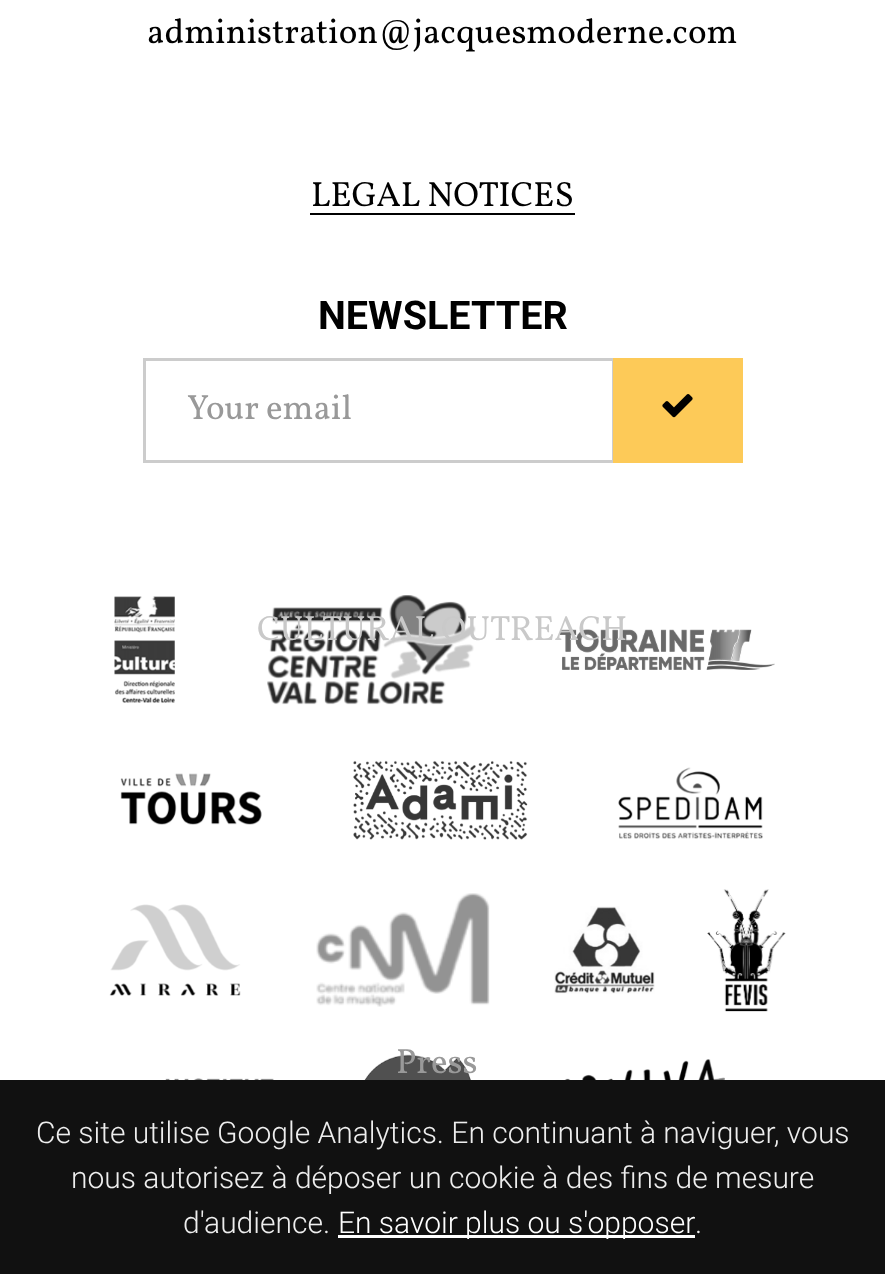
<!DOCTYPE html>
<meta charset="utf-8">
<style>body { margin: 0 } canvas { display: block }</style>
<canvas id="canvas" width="885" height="1274"></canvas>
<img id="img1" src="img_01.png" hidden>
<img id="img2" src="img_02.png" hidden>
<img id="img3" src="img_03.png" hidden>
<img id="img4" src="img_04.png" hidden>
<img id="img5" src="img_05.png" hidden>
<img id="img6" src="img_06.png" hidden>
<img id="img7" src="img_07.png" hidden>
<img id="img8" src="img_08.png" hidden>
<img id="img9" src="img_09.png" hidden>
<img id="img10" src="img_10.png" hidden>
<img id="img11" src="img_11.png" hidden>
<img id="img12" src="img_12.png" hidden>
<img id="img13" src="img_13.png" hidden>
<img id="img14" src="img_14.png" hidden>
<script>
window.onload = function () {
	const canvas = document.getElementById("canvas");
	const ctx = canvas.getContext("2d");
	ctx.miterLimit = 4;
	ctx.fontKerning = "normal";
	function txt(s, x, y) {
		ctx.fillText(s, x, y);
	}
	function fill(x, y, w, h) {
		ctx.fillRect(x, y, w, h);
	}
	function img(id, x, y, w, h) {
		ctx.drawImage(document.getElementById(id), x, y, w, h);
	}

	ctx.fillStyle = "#FFFFFF";
	fill(0, 0, 885, 1274);
	ctx.fillStyle = "#000000";
	fill(310, 213, 265, 2);
	ctx.strokeStyle = "#CCCCCC";
	ctx.lineWidth = 3;
	ctx.strokeRect(144.5, 359.5, 469, 102);
	ctx.fillStyle = "#FDCA58";
	fill(613, 358, 130, 105);
	img("img1", 662, 394, 31, 24);
	img("img2", 114, 596, 61, 107);
	img("img3", 267, 595, 209, 110);
	img("img4", 560, 629, 215, 41);
	img("img5", 120, 773, 142, 52);
	img("img6", 353, 760, 175, 80);
	img("img7", 618, 767, 145, 72);
	img("img8", 109, 904, 132, 92);
	img("img9", 316, 893, 174, 114);
	img("img10", 554, 906, 101, 88);
	img("img11", 707, 889, 79, 123);
	img("img12", 165, 1078, 122, 2);
	img("img13", 357, 1054, 116, 26);
	img("img14", 540, 1059, 185, 21);
	ctx.fillStyle = "#111111";
	fill(0, 1080, 885, 194);
	ctx.fillStyle = "#FFFFFF";
	fill(338, 1235, 357, 3);
	ctx.font = "35px Vollkorn";
	ctx.fillStyle = "#000000";
	txt("administration@jacquesmoderne.com", 147, 43);
	txt("LEGAL NOTICES", 311, 206);
	ctx.font = "bold 39.5px Roboto";
	txt("NEWSLETTER", 318, 329);
	ctx.font = "35px Vollkorn";
	ctx.fillStyle = "#999999";
	txt("Your email", 187, 419);
	ctx.fillStyle = "#C9C9C9";
	txt("CULTURAL OUTREACH", 257, 640);
	ctx.fillStyle = "#999999";
	txt("Press", 396, 1073);
	ctx.font = "300 30px Roboto";
	ctx.fillStyle = "#EEEEEE";
	txt("Ce site utilise Google Analytics. En continuant à naviguer, vous", 36, 1143);
	txt("nous autorisez à déposer un cookie à des fins de mesure", 71, 1188);
	txt("d'audience.", 183, 1233);
	ctx.fillStyle = "#FFFFFF";
	txt("En savoir plus ou s'opposer", 338, 1233);
	ctx.fillStyle = "#EEEEEE";
	txt(".", 695, 1233);
};
</script>
